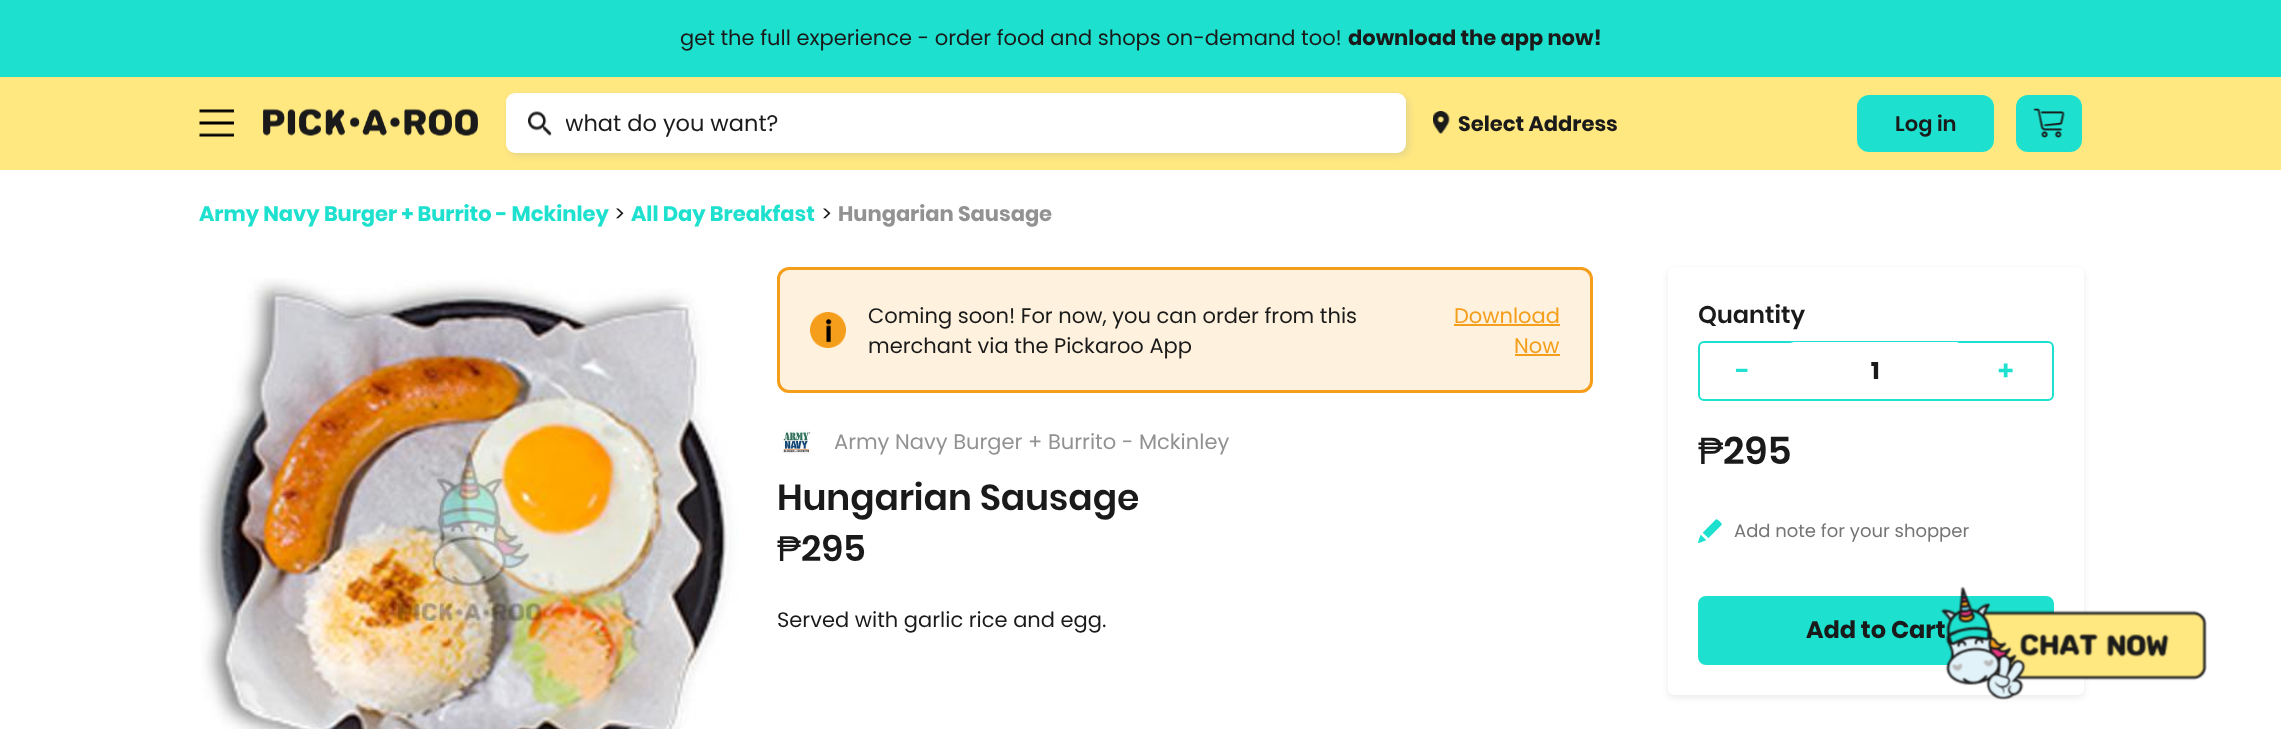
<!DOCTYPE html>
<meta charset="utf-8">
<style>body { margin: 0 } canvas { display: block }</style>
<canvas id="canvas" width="2281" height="729"></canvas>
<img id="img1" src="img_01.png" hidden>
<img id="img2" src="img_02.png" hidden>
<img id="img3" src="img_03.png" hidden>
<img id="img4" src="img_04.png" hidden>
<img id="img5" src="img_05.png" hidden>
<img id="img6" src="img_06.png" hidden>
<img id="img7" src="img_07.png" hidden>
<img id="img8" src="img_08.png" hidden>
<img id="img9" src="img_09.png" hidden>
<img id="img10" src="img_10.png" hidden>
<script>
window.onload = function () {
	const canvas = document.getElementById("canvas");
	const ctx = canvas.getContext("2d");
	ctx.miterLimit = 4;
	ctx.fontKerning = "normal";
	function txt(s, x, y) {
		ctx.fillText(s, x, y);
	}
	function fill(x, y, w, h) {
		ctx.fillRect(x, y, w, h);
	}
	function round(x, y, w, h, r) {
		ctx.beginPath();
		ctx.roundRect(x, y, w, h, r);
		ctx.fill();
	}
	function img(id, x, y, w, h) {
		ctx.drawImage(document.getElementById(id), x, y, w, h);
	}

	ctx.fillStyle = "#FFFFFF";
	fill(0, 0, 2281, 729);
	ctx.fillStyle = "#FFE880";
	fill(0, 77, 2281, 93);
	ctx.fillStyle = "#1DE1CE";
	fill(0, 0, 2281, 77);
	img("img1", 199, 109, 35, 28);
	img("img2", 263, 108, 215, 28);
	ctx.fillStyle = "rgba(161, 161, 161, 0.25)";
	ctx.filter = "blur(3px)";
	ctx.beginPath();
	ctx.roundRect(509, 96, 900, 60, 9);
	ctx.fill();
	ctx.filter = "none";
	ctx.fillStyle = "#FFFFFF";
	round(506, 93, 900, 60, 9);
	img("img3", 528, 111, 24, 25);
	img("img4", 1433, 111, 17, 23);
	ctx.fillStyle = "#1DE1CE";
	round(1857, 95, 137, 57, 12);
	round(2016, 95, 66, 57, 12);
	img("img5", 2033, 108, 32, 30);
	img("img6", 199, 278, 540, 451);
	ctx.fillStyle = "#FEF1DD";
	ctx.beginPath();
	ctx.roundRect(778.5, 268.5, 813, 123, 10.5);
	ctx.fill();
	ctx.strokeStyle = "#F59E1B";
	ctx.lineWidth = 3;
	ctx.stroke();
	img("img7", 810, 312, 36, 36);
	ctx.fillStyle = "#F59E1B";
	fill(1454, 324, 106, 2);
	fill(1515, 354, 45, 2);
	img("img8", 782, 428, 29, 26);
	ctx.fillStyle = "rgba(0, 0, 0, 0.08)";
	ctx.filter = "blur(3px)";
	ctx.beginPath();
	ctx.roundRect(1668, 270, 416, 428, 6);
	ctx.fill();
	ctx.filter = "none";
	ctx.fillStyle = "#FFFFFF";
	round(1668, 267, 416, 428, 6);
	ctx.beginPath();
	ctx.roundRect(1699, 342, 354, 58, 5);
	ctx.strokeStyle = "#1DE1CE";
	ctx.lineWidth = 2;
	ctx.stroke();
	round(1788, 342, 174, 57, 6);
	img("img9", 1698, 519, 24, 24);
	ctx.fillStyle = "#1DE1CE";
	round(1698, 596, 356, 69, 8);
	ctx.font = "21px Poppins";
	ctx.fillStyle = "#1A1A1A";
	txt("get the full experience - order food and shops on-demand too!", 680, 45);
	ctx.font = "bold 21px Poppins";
	txt("download the app now!", 1348, 45);
	ctx.save();
	ctx.beginPath();
	ctx.rect(566, 107, 825, 34);
	ctx.clip();
	ctx.font = "22.5px Poppins";
	txt("what do you want?", 565, 131);
	ctx.restore();
	txt("Select Address", 1458, 131);
	ctx.font = "600 21px Poppins";
	txt("Log in", 1895, 131);
	ctx.font = "bold 21px Poppins";
	ctx.fillStyle = "#1DE1CE";
	txt("Army Navy Burger + Burrito - Mckinley", 199, 221);
	ctx.font = "21px Poppins";
	ctx.fillStyle = "#1A1A1A";
	txt(">", 614, 221);
	ctx.font = "bold 21px Poppins";
	ctx.fillStyle = "#1DE1CE";
	txt("All Day Breakfast", 631, 221);
	ctx.font = "21px Poppins";
	ctx.fillStyle = "#1A1A1A";
	txt(">", 821, 221);
	ctx.font = "bold 21px Poppins";
	ctx.fillStyle = "#929292";
	txt("Hungarian Sausage", 838, 221);
	ctx.font = "21px Poppins";
	ctx.fillStyle = "#1A1A1A";
	txt("Coming soon! For now, you can order from this", 868, 323);
	txt("merchant via the Pickaroo App", 868, 353);
	ctx.fillStyle = "#F59E1B";
	txt("Download", 1454, 323);
	txt("Now", 1514, 353);
	ctx.fillStyle = "#929292";
	txt("Army Navy Burger + Burrito - Mckinley", 834, 449);
	ctx.font = "600 36px Poppins";
	ctx.fillStyle = "#1A1A1A";
	txt("Hungarian Sausage", 777, 510);
	ctx.font = "36px Liberation Sans";
	txt("₱", 777, 561);
	ctx.font = "600 36px Poppins";
	txt("295", 801, 561);
	ctx.font = "21px Poppins";
	txt("Served with garlic rice and egg.", 777, 627);
	ctx.font = "600 24px Poppins";
	txt("Quantity", 1698, 323);
	ctx.letterSpacing = "2px";
	ctx.font = "600 27px Poppins";
	ctx.fillStyle = "#1DE1CE";
	txt("-", 1736, 380);
	ctx.letterSpacing = "0px";
	ctx.font = "bold 24px Poppins";
	ctx.fillStyle = "#1A1A1A";
	txt("1", 1871, 379);
	ctx.letterSpacing = "2px";
	ctx.font = "600 27px Poppins";
	ctx.fillStyle = "#1DE1CE";
	txt("+", 1998, 380);
	ctx.letterSpacing = "0px";
	ctx.font = "38px Liberation Sans";
	ctx.fillStyle = "#1A1A1A";
	txt("₱", 1698, 464);
	ctx.font = "600 38px Poppins";
	txt("295", 1723, 464);
	ctx.font = "18px Poppins";
	ctx.fillStyle = "#757575";
	txt("Add note for your shopper", 1734, 537);
	ctx.font = "bold 24px Poppins";
	ctx.fillStyle = "#1A1A1A";
	txt("Add to Cart", 1806, 638);
	img("img10", 1940, 586, 267, 114);
};
</script>
